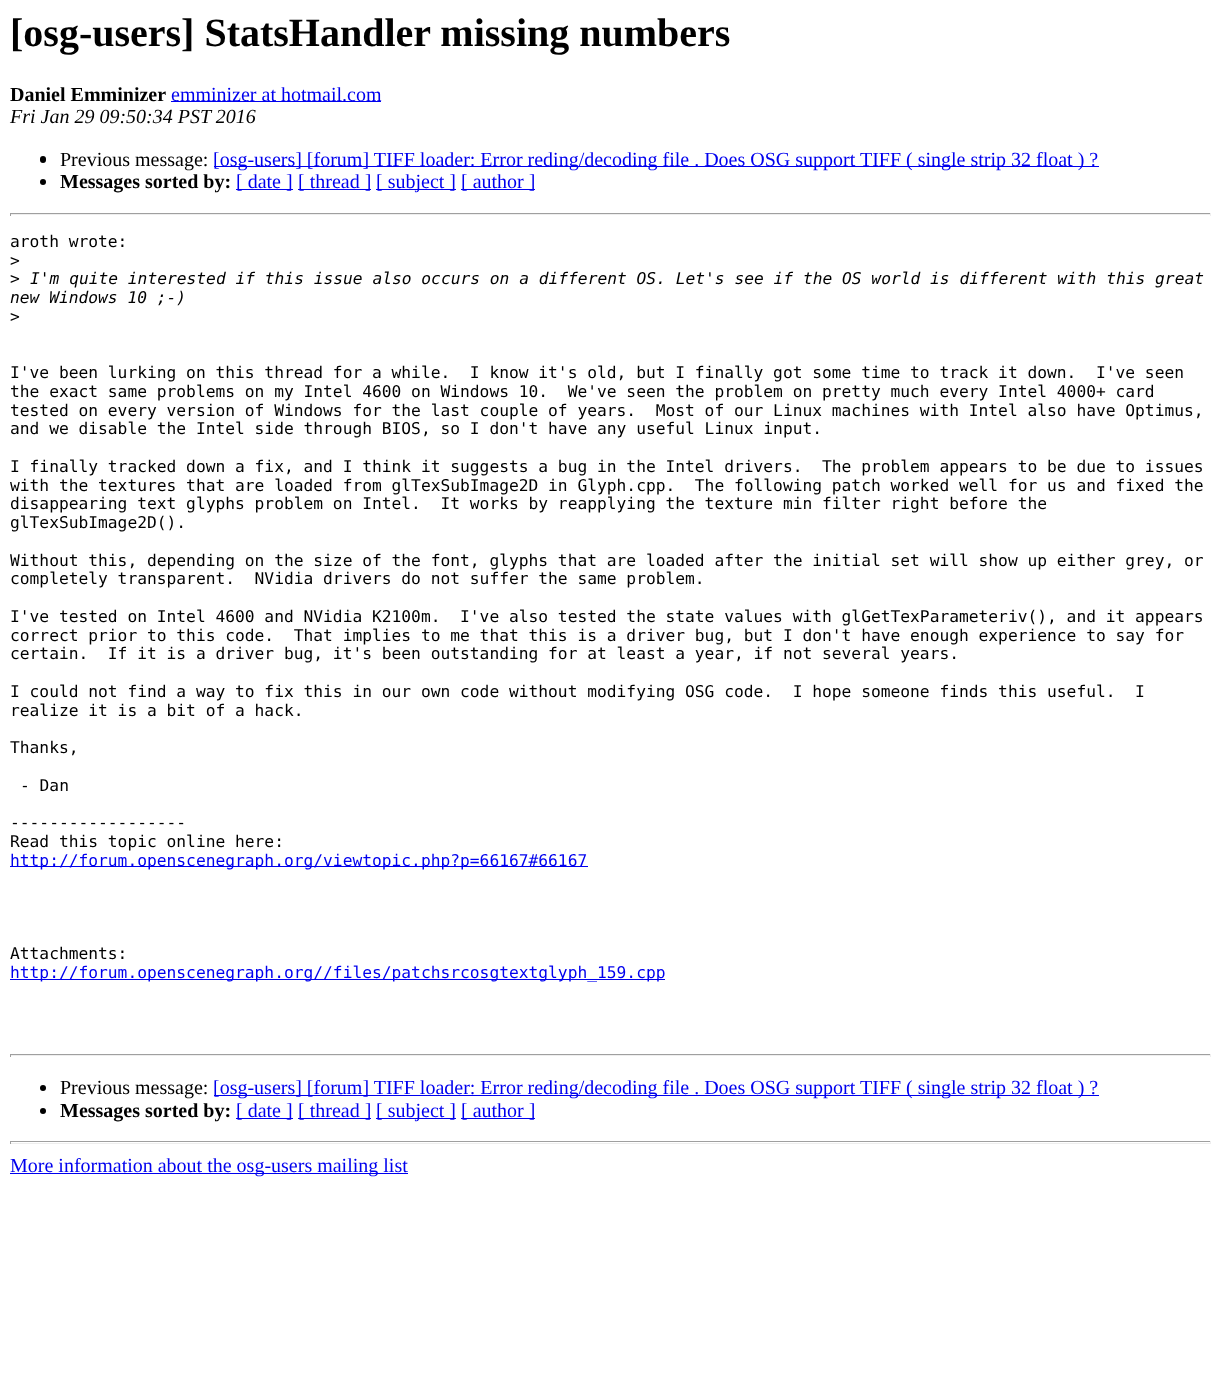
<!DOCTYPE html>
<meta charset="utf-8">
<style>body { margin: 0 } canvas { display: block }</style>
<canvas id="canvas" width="1221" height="1380"></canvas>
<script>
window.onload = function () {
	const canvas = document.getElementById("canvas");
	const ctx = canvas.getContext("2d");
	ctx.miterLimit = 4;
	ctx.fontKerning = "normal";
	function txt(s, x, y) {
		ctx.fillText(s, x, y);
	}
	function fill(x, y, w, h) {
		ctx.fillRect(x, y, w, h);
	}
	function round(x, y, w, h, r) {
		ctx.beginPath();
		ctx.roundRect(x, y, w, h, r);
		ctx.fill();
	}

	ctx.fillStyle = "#FFFFFF";
	fill(0, 0, 1221, 1380);
	ctx.fillStyle = "#0000EE";
	fill(171, 101, 210, 1);
	ctx.fillStyle = "#000000";
	round(40, 156, 6, 7, 3);
	ctx.fillStyle = "#0000EE";
	fill(214, 166, 885, 1);
	ctx.fillStyle = "#000000";
	ctx.beginPath();
	ctx.arc(43, 182, 3, 0, Math.PI * 2);
	ctx.fill();
	ctx.fillStyle = "#0000EE";
	fill(236, 189, 57, 1);
	fill(298, 189, 73, 1);
	fill(376, 189, 80, 1);
	fill(461, 189, 74, 1);
	ctx.fillStyle = "#9F9F9F";
	fill(10, 213, 1201, 1);
	ctx.fillStyle = "#EEEEEE";
	fill(1210, 213, 1, 3);
	fill(10, 214, 1201, 1);
	ctx.fillStyle = "#9F9F9F";
	fill(10, 213, 1, 3);
	ctx.fillStyle = "#0000EE";
	fill(10, 866, 578, 1);
	fill(10, 979, 655, 1);
	ctx.fillStyle = "#9F9F9F";
	fill(10, 1054, 1201, 1);
	ctx.fillStyle = "#EEEEEE";
	fill(1210, 1054, 1, 3);
	fill(10, 1055, 1201, 1);
	ctx.fillStyle = "#9F9F9F";
	fill(10, 1054, 1, 3);
	ctx.fillStyle = "#000000";
	ctx.beginPath();
	ctx.arc(43, 1088, 3, 0, Math.PI * 2);
	ctx.fill();
	ctx.fillStyle = "#0000EE";
	fill(214, 1095, 885, 1);
	ctx.fillStyle = "#000000";
	ctx.beginPath();
	ctx.arc(43, 1111, 3, 0, Math.PI * 2);
	ctx.fill();
	ctx.fillStyle = "#0000EE";
	fill(236, 1118, 57, 1);
	fill(298, 1118, 73, 1);
	fill(376, 1118, 80, 1);
	fill(461, 1118, 74, 1);
	ctx.fillStyle = "#9F9F9F";
	fill(10, 1141, 1201, 1);
	ctx.fillStyle = "#EEEEEE";
	fill(1210, 1141, 1, 3);
	fill(10, 1143, 1201, 1);
	ctx.fillStyle = "#9F9F9F";
	fill(10, 1141, 1, 3);
	ctx.fillStyle = "#0000EE";
	fill(10, 1173, 398, 1);
	ctx.font = "bold 40px Liberation Serif";
	ctx.fillStyle = "#000000";
	txt("[osg-users] StatsHandler missing numbers", 10, 46);
	ctx.font = "bold 20px Liberation Serif";
	txt("Daniel Emminizer", 10, 101);
	ctx.font = "20px Liberation Serif";
	ctx.fillStyle = "#0000EE";
	txt("emminizer at hotmail.com", 171, 101);
	ctx.font = "italic 20px Liberation Serif";
	ctx.fillStyle = "#000000";
	txt("Fri Jan 29 09:50:34 PST 2016", 10, 123);
	ctx.font = "20px Liberation Serif";
	txt("Previous message:", 60, 166);
	ctx.fillStyle = "#0000EE";
	txt("[osg-users] [forum] TIFF loader: Error reding/decoding file . Does OSG support TIFF ( single strip 32 float ) ?", 213, 166);
	ctx.font = "bold 20px Liberation Serif";
	ctx.fillStyle = "#000000";
	txt("Messages sorted by:", 60, 188);
	ctx.font = "20px Liberation Serif";
	ctx.fillStyle = "#0000EE";
	txt("[ date ]", 236, 188);
	txt("[ thread ]", 298, 188);
	txt("[ subject ]", 376, 188);
	txt("[ author ]", 461, 188);
	ctx.font = "16.25px DejaVu Sans Mono";
	ctx.fillStyle = "#000000";
	txt("aroth wrote:", 10, 247);
	txt(">", 10, 266);
	txt(">", 10, 284);
	ctx.font = "italic 16.25px DejaVu Sans Mono";
	txt("I'm quite interested if this issue also occurs on a different OS. Let's see if the OS world is different with this great", 30, 284);
	txt("new Windows 10 ;-)", 10, 303);
	ctx.font = "16.25px DejaVu Sans Mono";
	txt(">", 10, 322);
	txt("I've been lurking on this thread for a while.  I know it's old, but I finally got some time to track it down.  I've seen", 10, 378);
	txt("the exact same problems on my Intel 4600 on Windows 10.  We've seen the problem on pretty much every Intel 4000+ card", 10, 397);
	txt("tested on every version of Windows for the last couple of years.  Most of our Linux machines with Intel also have Optimus,", 10, 416);
	txt("and we disable the Intel side through BIOS, so I don't have any useful Linux input.", 10, 434);
	txt("I finally tracked down a fix, and I think it suggests a bug in the Intel drivers.  The problem appears to be due to issues", 10, 472);
	txt("with the textures that are loaded from glTexSubImage2D in Glyph.cpp.  The following patch worked well for us and fixed the", 10, 491);
	txt("disappearing text glyphs problem on Intel.  It works by reapplying the texture min filter right before the", 10, 509);
	txt("glTexSubImage2D().", 10, 528);
	txt("Without this, depending on the size of the font, glyphs that are loaded after the initial set will show up either grey, or", 10, 566);
	txt("completely transparent.  NVidia drivers do not suffer the same problem.", 10, 584);
	txt("I've tested on Intel 4600 and NVidia K2100m.  I've also tested the state values with glGetTexParameteriv(), and it appears", 10, 622);
	txt("correct prior to this code.  That implies to me that this is a driver bug, but I don't have enough experience to say for", 10, 641);
	txt("certain.  If it is a driver bug, it's been outstanding for at least a year, if not several years.", 10, 659);
	txt("I could not find a way to fix this in our own code without modifying OSG code.  I hope someone finds this useful.  I", 10, 697);
	txt("realize it is a bit of a hack.", 10, 716);
	txt("Thanks,", 10, 753);
	txt("- Dan", 20, 791);
	txt("------------------", 10, 828);
	txt("Read this topic online here:", 10, 847);
	ctx.fillStyle = "#0000EE";
	txt("http://forum.openscenegraph.org/viewtopic.php?p=66167#66167", 10, 866);
	ctx.fillStyle = "#000000";
	txt("Attachments:", 10, 959);
	ctx.fillStyle = "#0000EE";
	txt("http://forum.openscenegraph.org//files/patchsrcosgtextglyph_159.cpp", 10, 978);
	ctx.font = "20px Liberation Serif";
	ctx.fillStyle = "#000000";
	txt("Previous message:", 60, 1094);
	ctx.fillStyle = "#0000EE";
	txt("[osg-users] [forum] TIFF loader: Error reding/decoding file . Does OSG support TIFF ( single strip 32 float ) ?", 213, 1094);
	ctx.font = "bold 20px Liberation Serif";
	ctx.fillStyle = "#000000";
	txt("Messages sorted by:", 60, 1117);
	ctx.font = "20px Liberation Serif";
	ctx.fillStyle = "#0000EE";
	txt("[ date ]", 236, 1117);
	txt("[ thread ]", 298, 1117);
	txt("[ subject ]", 376, 1117);
	txt("[ author ]", 461, 1117);
	txt("More information about the osg-users mailing list", 10, 1172);
};
</script>
